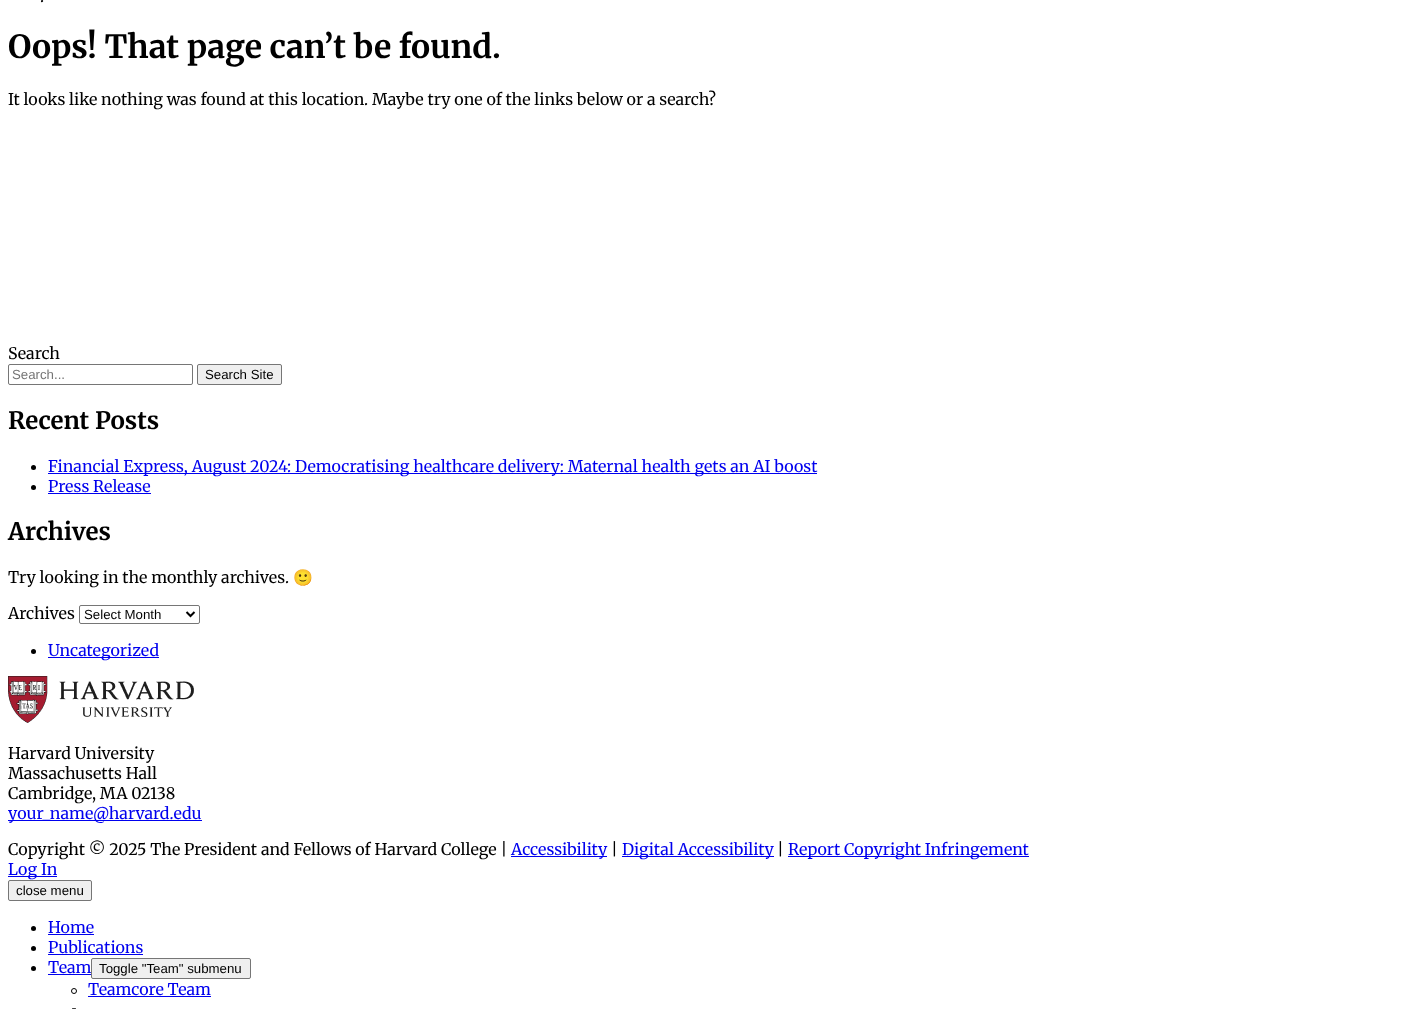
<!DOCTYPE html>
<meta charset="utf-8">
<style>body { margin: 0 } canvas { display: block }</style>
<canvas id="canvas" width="1414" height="1009"></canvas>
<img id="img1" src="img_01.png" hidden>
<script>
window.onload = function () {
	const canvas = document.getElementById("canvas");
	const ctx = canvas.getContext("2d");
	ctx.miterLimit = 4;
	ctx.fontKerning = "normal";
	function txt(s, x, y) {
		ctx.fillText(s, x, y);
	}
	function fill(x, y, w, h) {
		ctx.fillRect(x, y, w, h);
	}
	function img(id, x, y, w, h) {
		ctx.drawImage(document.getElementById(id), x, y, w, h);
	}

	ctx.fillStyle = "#FFFFFF";
	fill(0, 0, 1414, 1009);
	ctx.beginPath();
	ctx.roundRect(8.5, 364.5, 184, 20, 1.5);
	ctx.strokeStyle = "#767676";
	ctx.stroke();
	ctx.fillStyle = "#EFEFEF";
	ctx.beginPath();
	ctx.roundRect(197.5, 364.5, 84, 20, 1.5);
	ctx.fill();
	ctx.stroke();
	ctx.fillStyle = "#000000";
	ctx.beginPath();
	ctx.arc(33.5, 467.5, 2.5, 0, Math.PI * 2);
	ctx.fill();
	ctx.fillStyle = "#0000EE";
	fill(48, 473, 769, 1);
	ctx.fillStyle = "#000000";
	ctx.beginPath();
	ctx.arc(33.5, 487.5, 2.5, 0, Math.PI * 2);
	ctx.fill();
	ctx.fillStyle = "#0000EE";
	fill(48, 493, 103, 1);
	ctx.beginPath();
	ctx.roundRect(79.5, 605.5, 120, 18, 1.5);
	ctx.stroke();
	ctx.beginPath();
	ctx.moveTo(186.5, 612);
	ctx.lineTo(190.5, 616);
	ctx.lineTo(194.5, 612);
	ctx.strokeStyle = "#000000";
	ctx.lineWidth = 2;
	ctx.stroke();
	ctx.fillStyle = "#000000";
	ctx.beginPath();
	ctx.arc(33.5, 651.5, 2.5, 0, Math.PI * 2);
	ctx.fill();
	ctx.fillStyle = "#0000EE";
	fill(48, 657, 111, 1);
	img("img1", 8, 676, 186, 47);
	fill(8, 820, 194, 1);
	fill(511, 856, 96, 1);
	fill(622, 856, 152, 1);
	fill(788, 856, 241, 1);
	fill(8, 876, 49, 1);
	ctx.fillStyle = "#EFEFEF";
	ctx.beginPath();
	ctx.roundRect(8.5, 880.5, 83, 20, 1.5);
	ctx.fill();
	ctx.strokeStyle = "#767676";
	ctx.lineWidth = 1;
	ctx.stroke();
	ctx.fillStyle = "#000000";
	ctx.beginPath();
	ctx.arc(33.5, 928.5, 2.5, 0, Math.PI * 2);
	ctx.fill();
	ctx.fillStyle = "#0000EE";
	fill(48, 934, 46, 1);
	ctx.fillStyle = "#000000";
	ctx.beginPath();
	ctx.arc(33.5, 948.5, 2.5, 0, Math.PI * 2);
	ctx.fill();
	ctx.fillStyle = "#0000EE";
	fill(48, 954, 95, 1);
	ctx.fillStyle = "#000000";
	ctx.beginPath();
	ctx.arc(33.5, 968.5, 2.5, 0, Math.PI * 2);
	ctx.fill();
	ctx.fillStyle = "#0000EE";
	fill(48, 974, 43, 1);
	ctx.beginPath();
	ctx.arc(74, 991, 2.5, 0, Math.PI * 2);
	ctx.strokeStyle = "#000000";
	ctx.stroke();
	fill(88, 996, 123, 1);
	ctx.beginPath();
	ctx.roundRect(71.5, 1008.5, 5, 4, 2.5);
	ctx.stroke();
	ctx.font = "16px Merriweather";
	ctx.fillStyle = "#000000";
	txt(".", 40, 2);
	ctx.font = "bold 32px Merriweather";
	txt("Oops! That page can’t be found.", 8, 58);
	ctx.font = "16px Merriweather";
	txt("It looks like nothing was found at this location. Maybe try one of the links below or a search?", 8, 105);
	txt("Search", 8, 359);
	ctx.font = "13.25px Liberation Sans";
	ctx.fillStyle = "#757575";
	txt("Search...", 12, 379);
	ctx.fillStyle = "#000000";
	txt("Search Site", 205, 379);
	ctx.font = "bold 24px Merriweather";
	txt("Recent Posts", 8, 429);
	ctx.font = "16px Merriweather";
	ctx.fillStyle = "#0000EE";
	txt("Financial Express, August 2024: Democratising healthcare delivery: Maternal health gets an AI boost", 48, 472);
	txt("Press Release", 48, 492);
	ctx.font = "bold 24px Merriweather";
	ctx.fillStyle = "#000000";
	txt("Archives", 8, 540);
	ctx.font = "16px Merriweather";
	txt("Try looking in the monthly archives.", 8, 583);
	ctx.font = "16px Noto Color Emoji";
	txt("🙂", 293, 583);
	ctx.font = "16px Merriweather";
	txt("Archives", 8, 619);
	ctx.font = "13.25px Liberation Sans";
	txt("Select Month", 84, 619);
	ctx.font = "16px Merriweather";
	ctx.fillStyle = "#0000EE";
	txt("Uncategorized", 48, 656);
	ctx.fillStyle = "#000000";
	txt("Harvard University", 8, 759);
	txt("Massachusetts Hall", 8, 779);
	txt("Cambridge, MA 02138", 8, 799);
	ctx.fillStyle = "#0000EE";
	txt("your_name@harvard.edu", 8, 819);
	ctx.fillStyle = "#000000";
	txt("Copyright © 2025 The President and Fellows of Harvard College |", 8, 855);
	ctx.fillStyle = "#0000EE";
	txt("Accessibility", 511, 855);
	ctx.fillStyle = "#000000";
	txt("|", 611, 855);
	ctx.fillStyle = "#0000EE";
	txt("Digital Accessibility", 622, 855);
	ctx.fillStyle = "#000000";
	txt("|", 777, 855);
	ctx.fillStyle = "#0000EE";
	txt("Report Copyright Infringement", 788, 855);
	txt("Log In", 8, 875);
	ctx.font = "13.25px Liberation Sans";
	ctx.fillStyle = "#000000";
	txt("close menu", 16, 895);
	ctx.font = "16px Merriweather";
	ctx.fillStyle = "#0000EE";
	txt("Home", 48, 933);
	txt("Publications", 48, 953);
	txt("Team", 48, 973);
	ctx.fillStyle = "#EFEFEF";
	ctx.beginPath();
	ctx.roundRect(91.5, 958.5, 159, 20, 1.5);
	ctx.fill();
	ctx.strokeStyle = "#767676";
	ctx.stroke();
	ctx.font = "13.25px Liberation Sans";
	ctx.fillStyle = "#000000";
	txt("Toggle \"Team\" submenu", 99, 973);
	ctx.font = "16px Merriweather";
	ctx.fillStyle = "#0000EE";
	txt("Teamcore Team", 88, 995);
};
</script>
